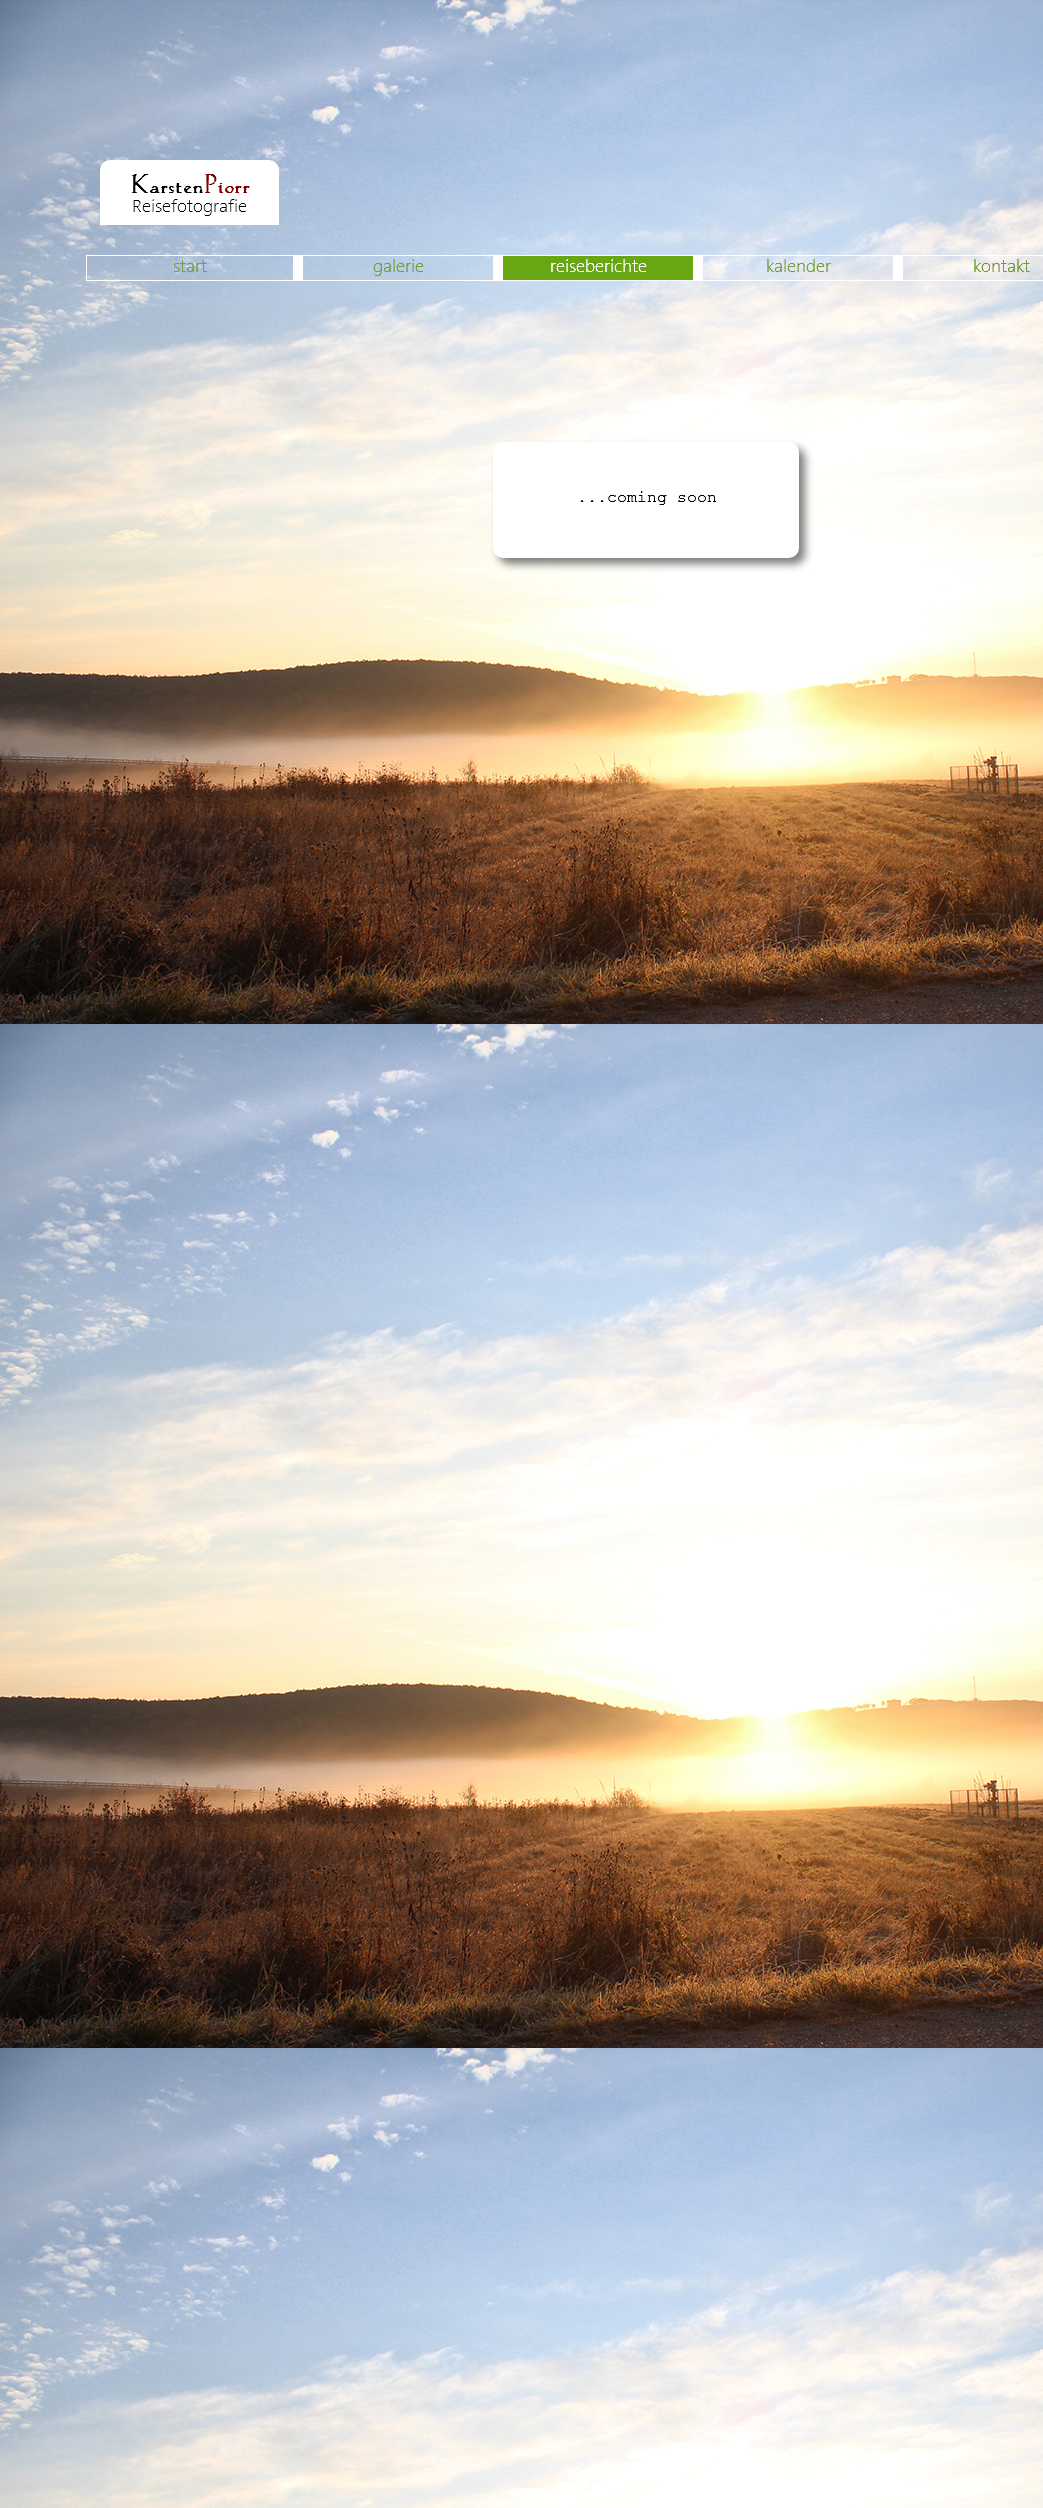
<!DOCTYPE html>
<meta charset="utf-8">
<style>body { margin: 0 } canvas { display: block }</style>
<canvas id="canvas" width="1043" height="2508"></canvas>
<img id="img1" src="img_01.png" hidden>
<img id="img2" src="img_02.png" hidden>
<img id="img3" src="img_03.png" hidden>
<img id="img4" src="img_04.png" hidden>
<img id="img5" src="img_05.png" hidden>
<img id="img6" src="img_06.png" hidden>
<img id="img7" src="img_07.png" hidden>
<img id="img8" src="img_08.png" hidden>
<img id="img9" src="img_09.png" hidden>
<script>
window.onload = function () {
	const canvas = document.getElementById("canvas");
	const ctx = canvas.getContext("2d");
	ctx.miterLimit = 4;
	ctx.fontKerning = "normal";
	function fill(x, y, w, h) {
		ctx.fillRect(x, y, w, h);
	}
	function round(x, y, w, h, r) {
		ctx.beginPath();
		ctx.roundRect(x, y, w, h, r);
		ctx.fill();
	}
	function img(id, x, y, w, h) {
		ctx.drawImage(document.getElementById(id), x, y, w, h);
	}

	ctx.fillStyle = "#FFFFFF";
	fill(0, 0, 1043, 2508);
	img("img1", 0, 0, 1043, 2508);
	ctx.beginPath();
	ctx.roundRect(100, 160, 179, 65, [10, 10, 0, 0]);
	ctx.fill();
	img("img2", 132, 174, 118, 19);
	img("img3", 133, 199, 114, 17);
	ctx.fillStyle = "#68A613";
	fill(503, 256, 190, 24);
	ctx.strokeStyle = "#FFFFFF";
	ctx.strokeRect(86.5, 255.5, 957, 25);
	ctx.fillStyle = "#FFFFFF";
	fill(293, 256, 10, 24);
	img("img4", 373, 259, 51, 17);
	fill(493, 256, 10, 24);
	fill(693, 256, 10, 24);
	fill(893, 256, 10, 24);
	img("img5", 174, 260, 33, 12);
	img("img6", 551, 259, 96, 13);
	img("img7", 767, 259, 64, 13);
	img("img8", 974, 259, 56, 13);
	ctx.fillStyle = "rgba(0, 0, 0, 0.51)";
	ctx.filter = "blur(4px)";
	ctx.beginPath();
	ctx.roundRect(499, 448, 306, 116, 10);
	ctx.fill();
	ctx.filter = "none";
	ctx.fillStyle = "#FFFFFF";
	round(493, 442, 306, 116, 10);
	img("img9", 580, 491, 136, 14);
};
</script>
